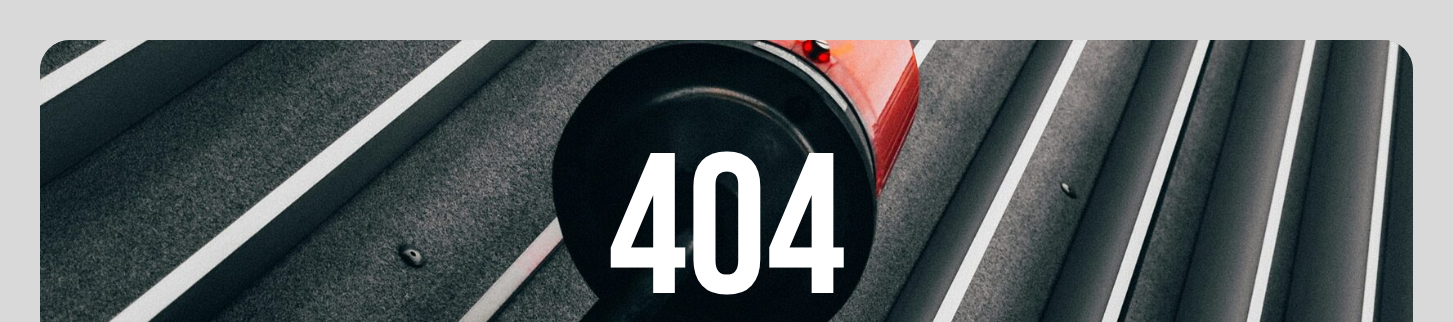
<!DOCTYPE html>
<meta charset="utf-8">
<style>body { margin: 0 } canvas { display: block }</style>
<canvas id="canvas" width="1453" height="322"></canvas>
<img id="img1" src="img_01.png" hidden>
<img id="img2" src="img_02.png" hidden>
<script>
window.onload = function () {
	const canvas = document.getElementById("canvas");
	const ctx = canvas.getContext("2d");
	ctx.miterLimit = 4;
	ctx.fontKerning = "normal";
	function txt(s, x, y) {
		ctx.fillText(s, x, y);
	}
	function fill(x, y, w, h) {
		ctx.fillRect(x, y, w, h);
	}
	function img(id, x, y, w, h) {
		ctx.drawImage(document.getElementById(id), x, y, w, h);
	}

	ctx.fillStyle = "#D9D9D9";
	fill(0, 0, 1453, 322);
	img("img1", 40, 40, 1373, 30);
	img("img2", 40, 40, 1373, 282);
	ctx.font = "bold 200px Bebas Neue";
	ctx.fillStyle = "#FFFFFF";
	txt("404", 608, 293);
};
</script>
